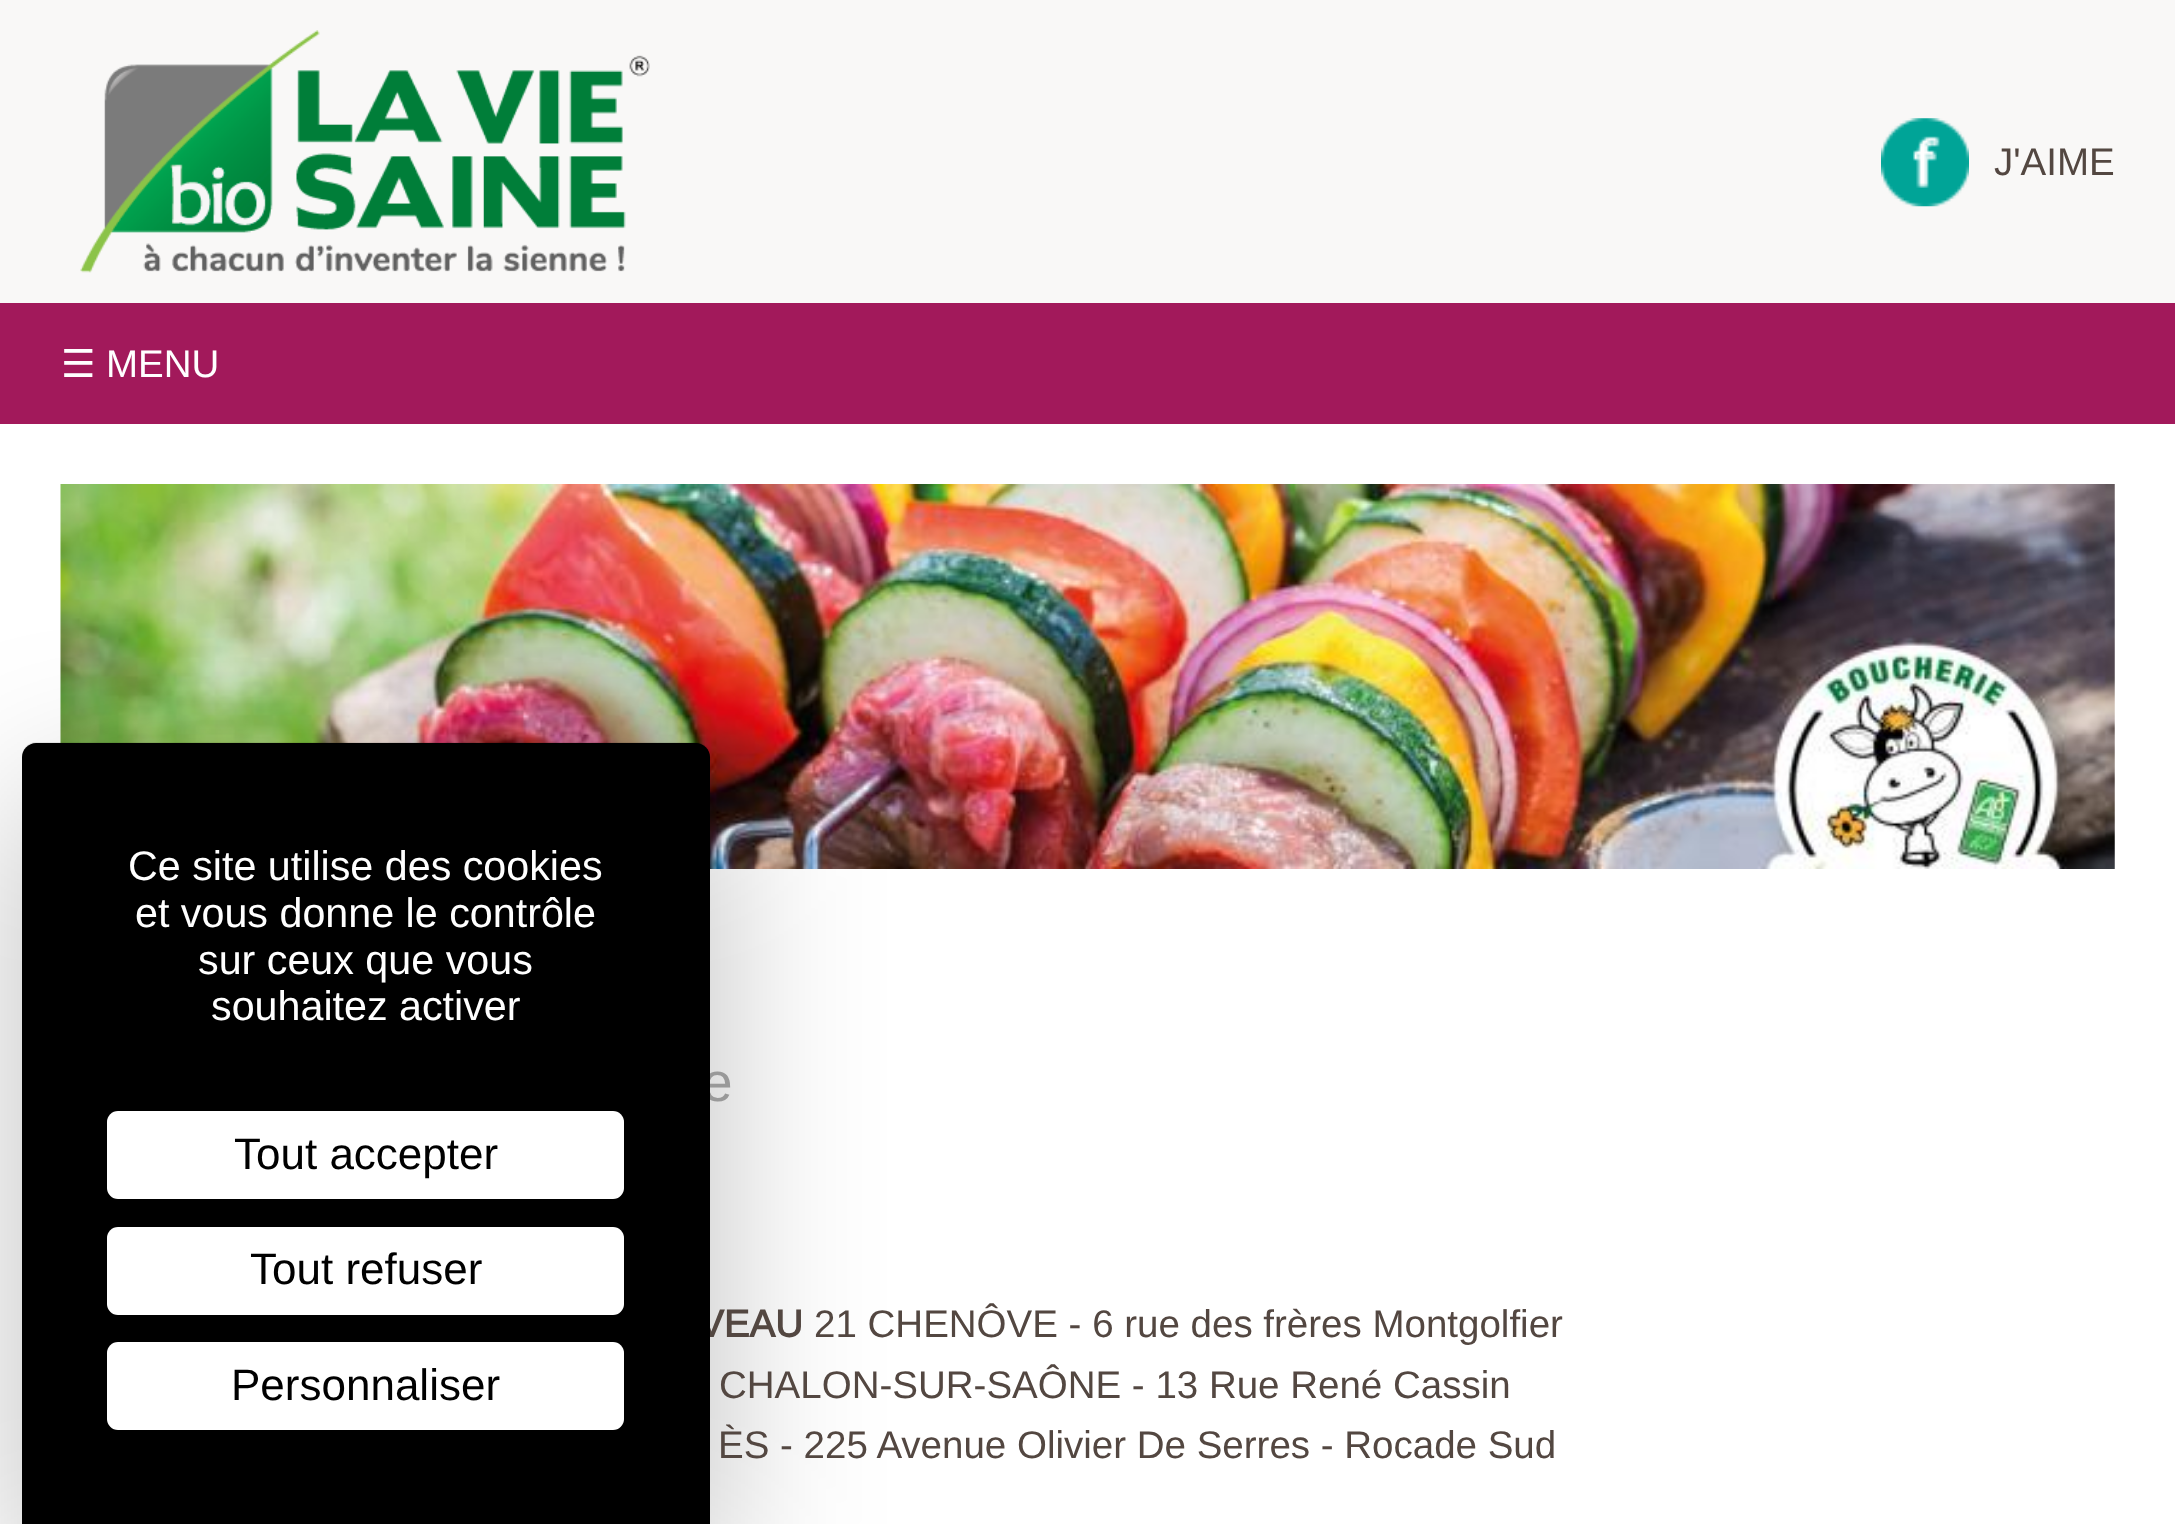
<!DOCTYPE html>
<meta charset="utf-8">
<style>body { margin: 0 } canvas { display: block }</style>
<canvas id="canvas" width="2175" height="1524"></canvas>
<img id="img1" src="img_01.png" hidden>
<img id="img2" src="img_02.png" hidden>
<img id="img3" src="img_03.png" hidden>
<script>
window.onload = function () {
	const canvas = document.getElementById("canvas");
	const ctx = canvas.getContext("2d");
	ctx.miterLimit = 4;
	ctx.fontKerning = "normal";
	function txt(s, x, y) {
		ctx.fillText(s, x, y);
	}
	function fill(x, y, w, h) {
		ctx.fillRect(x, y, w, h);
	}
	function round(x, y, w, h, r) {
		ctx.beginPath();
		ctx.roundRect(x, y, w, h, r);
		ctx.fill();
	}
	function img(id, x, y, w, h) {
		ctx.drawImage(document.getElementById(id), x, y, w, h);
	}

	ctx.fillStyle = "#FFFFFF";
	fill(0, 0, 2175, 1524);
	ctx.fillStyle = "#F9F8F7";
	fill(0, 0, 2175, 303);
	img("img1", 80, 30, 570, 243);
	img("img2", 1881, 118, 88, 89);
	ctx.fillStyle = "#A2195B";
	fill(0, 303, 2175, 121);
	img("img3", 60, 484, 2055, 385);
	ctx.fillStyle = "rgba(0, 0, 0, 0.25)";
	ctx.filter = "blur(82.5px)";
	ctx.beginPath();
	ctx.roundRect(22, 798, 688, 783, 14);
	ctx.fill();
	ctx.filter = "none";
	ctx.font = "38.5px Arimo";
	ctx.fillStyle = "#534741";
	txt("J'AIME", 1994, 175);
	ctx.font = "38.5px DejaVu Sans";
	ctx.fillStyle = "#FFFFFF";
	txt("☰", 61, 377);
	ctx.font = "38.5px Arimo";
	txt("MENU", 106, 377);
	ctx.font = "55px Arimo";
	ctx.fillStyle = "#999999";
	txt("e", 702, 1101);
	ctx.font = "bold 38.5px Arimo";
	ctx.fillStyle = "#534741";
	txt("VEAU", 698, 1337);
	ctx.fillStyle = "#000000";
	ctx.beginPath();
	ctx.moveTo(36, 743);
	ctx.lineTo(696, 743);
	ctx.bezierCurveTo(703.5, 743, 710, 749.5, 710, 757);
	ctx.lineTo(710, 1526);
	ctx.lineTo(22, 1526);
	ctx.lineTo(22, 757);
	ctx.bezierCurveTo(22, 749.5, 28.5, 743, 36, 743);
	ctx.closePath();
	ctx.fill();
	ctx.fillStyle = "rgba(0, 0, 0, 0.08)";
	ctx.beginPath();
	ctx.moveTo(36, 742);
	ctx.lineTo(696, 742);
	ctx.bezierCurveTo(703, 742, 710, 749, 710, 756);
	ctx.lineTo(710, 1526);
	ctx.lineTo(22, 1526);
	ctx.lineTo(22, 756);
	ctx.bezierCurveTo(22, 749, 28, 742, 36, 742);
	ctx.closePath();
	ctx.moveTo(36, 745);
	ctx.lineTo(696, 745);
	ctx.bezierCurveTo(702, 745, 707, 750, 707, 756);
	ctx.lineTo(707, 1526);
	ctx.lineTo(25, 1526);
	ctx.lineTo(25, 756);
	ctx.bezierCurveTo(25, 750, 30, 745, 36, 745);
	ctx.closePath();
	ctx.fill("evenodd");
	ctx.font = "41.25px Arimo";
	ctx.fillStyle = "#FFFFFF";
	txt("souhaitez activer", 211, 1020);
	txt("sur ceux que vous", 198, 974);
	txt("et vous donne le contrôle", 135, 927);
	txt("Ce site utilise des cookies", 128, 880);
	round(107, 1342, 517, 88, 11);
	ctx.font = "44px Arimo";
	ctx.fillStyle = "#000000";
	txt("Personnaliser", 231, 1400);
	ctx.fillStyle = "#FFFFFF";
	round(107, 1227, 517, 88, 11);
	ctx.fillStyle = "#000000";
	txt("Tout refuser", 250, 1284);
	ctx.fillStyle = "#FFFFFF";
	round(107, 1111, 517, 88, 11);
	ctx.fillStyle = "#000000";
	txt("Tout accepter", 234, 1169);
	ctx.font = "38.5px Arimo";
	ctx.fillStyle = "#534741";
	txt("21 CHENÔVE - 6 rue des frères Montgolfier", 814, 1337);
	txt("CHALON-SUR-SAÔNE - 13 Rue René Cassin", 719, 1398);
	txt("ÈS - 225 Avenue Olivier De Serres - Rocade Sud", 718, 1458);
};
</script>
